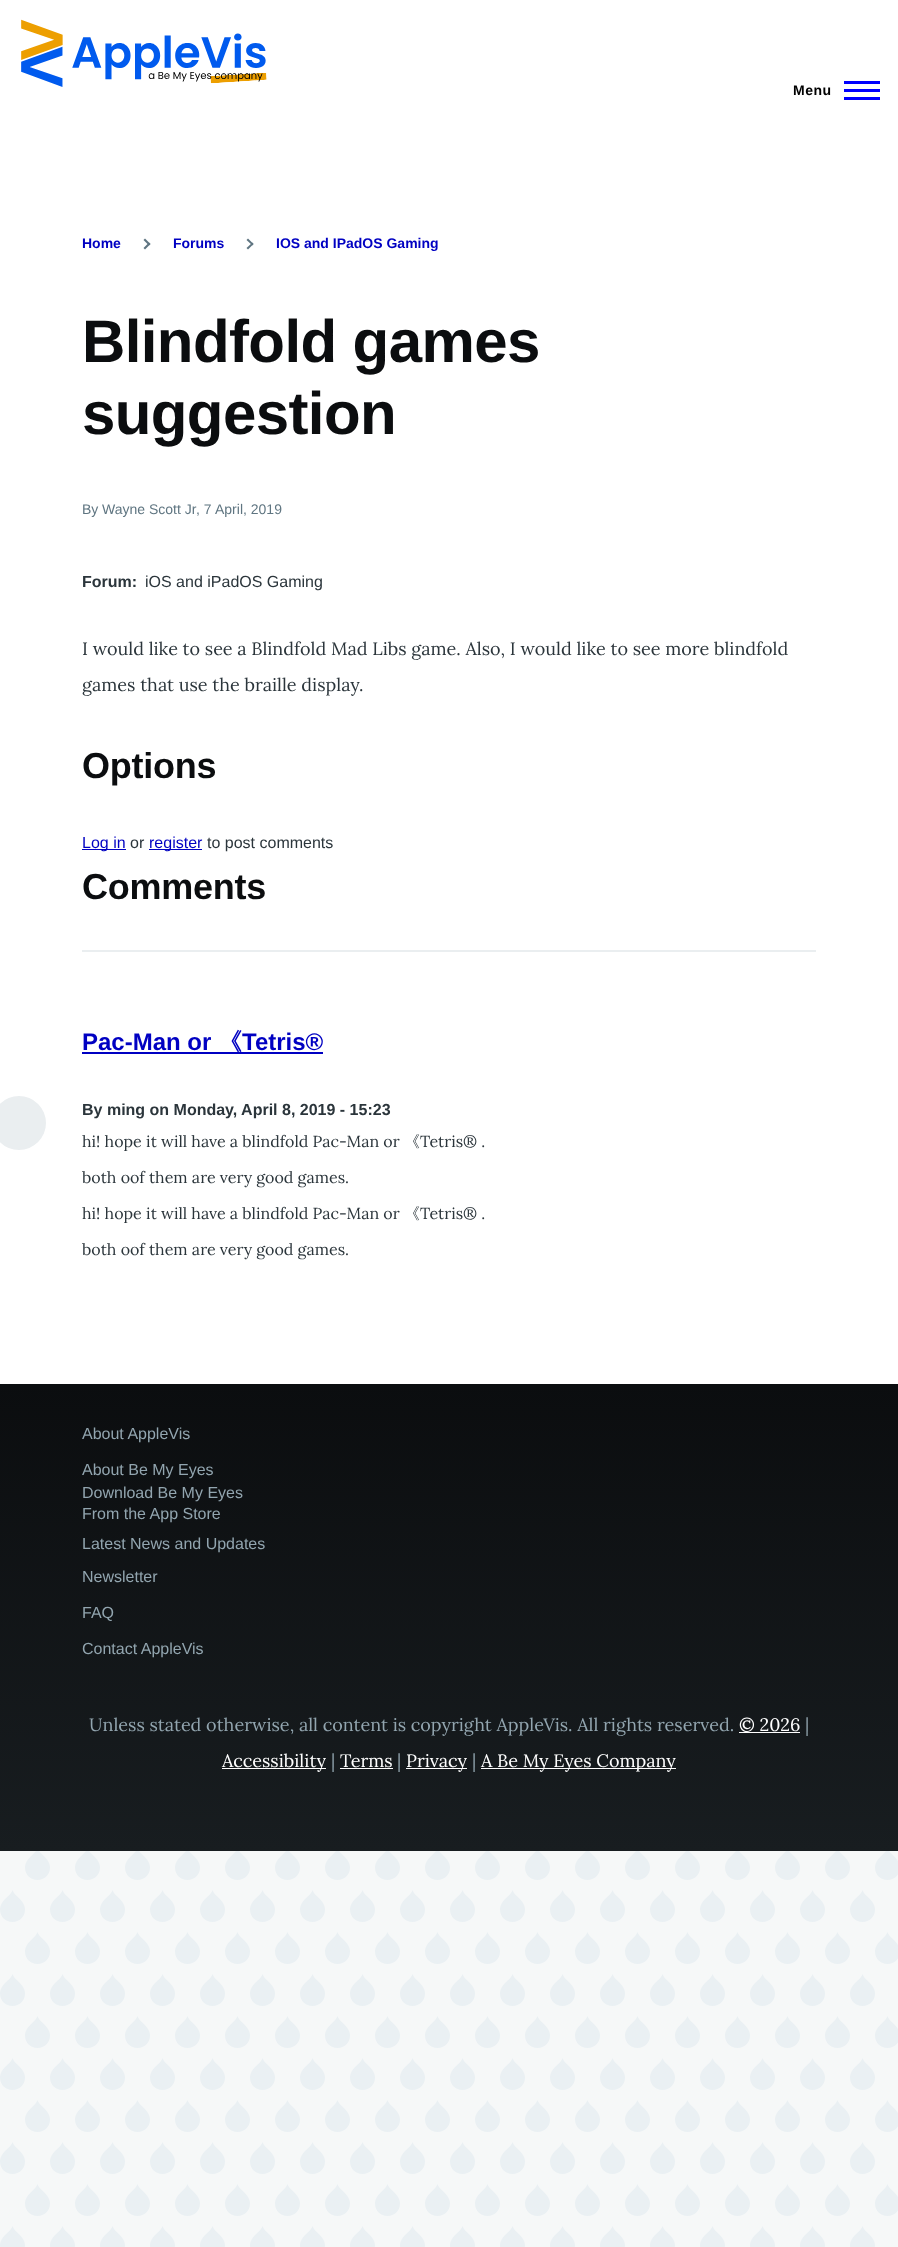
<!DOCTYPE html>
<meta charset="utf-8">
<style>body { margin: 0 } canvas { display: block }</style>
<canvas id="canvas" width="898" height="2247"></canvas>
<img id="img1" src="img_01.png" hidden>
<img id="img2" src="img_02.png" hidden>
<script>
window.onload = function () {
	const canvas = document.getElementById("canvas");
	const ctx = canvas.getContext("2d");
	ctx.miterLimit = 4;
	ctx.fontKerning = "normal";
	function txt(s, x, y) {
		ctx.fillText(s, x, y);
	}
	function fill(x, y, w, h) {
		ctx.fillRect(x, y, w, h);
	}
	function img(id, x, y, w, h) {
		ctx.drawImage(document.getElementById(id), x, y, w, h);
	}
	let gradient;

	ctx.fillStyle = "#F6F8F8";
	fill(0, 0, 898, 2247);
	img("img1", 0, 1851, 898, 396);
	ctx.fillStyle = "#FFFFFF";
	fill(0, 0, 898, 1384);
	img("img2", 21, 19, 246, 68);
	ctx.fillStyle = "#0000FF";
	fill(844, 89, 36, 3);
	fill(844, 81, 36, 3);
	fill(844, 97, 36, 3);
	ctx.fillStyle = "#5F7581";
	ctx.beginPath();
	ctx.moveTo(145, 238.5);
	ctx.lineTo(150.5, 244);
	ctx.lineTo(149, 245.5);
	ctx.lineTo(143.5, 240);
	ctx.closePath();
	ctx.fill();
	ctx.beginPath();
	ctx.moveTo(149, 242.5);
	ctx.lineTo(150.5, 244);
	ctx.lineTo(145, 249.5);
	ctx.lineTo(143.5, 248);
	ctx.closePath();
	ctx.fill();
	ctx.beginPath();
	ctx.moveTo(248, 238.5);
	ctx.lineTo(253.5, 244);
	ctx.lineTo(252.5, 245.5);
	ctx.lineTo(246.5, 240);
	ctx.closePath();
	ctx.fill();
	ctx.beginPath();
	ctx.moveTo(252.5, 242.5);
	ctx.lineTo(253.5, 244);
	ctx.lineTo(248, 249.5);
	ctx.lineTo(246.5, 248);
	ctx.closePath();
	ctx.fill();
	ctx.fillStyle = "#0000C2";
	fill(82, 849, 44, 1);
	fill(149, 849, 53, 1);
	ctx.fillStyle = "#EAEEF0";
	fill(82, 950, 734, 2);
	ctx.fillStyle = "#0000C2";
	fill(82, 1052, 241, 2);
	ctx.fillStyle = "#EAEEF0";
	ctx.beginPath();
	ctx.arc(19, 1123, 27, 0, Math.PI * 2);
	ctx.fill();
	gradient = ctx.createLinearGradient(449, 1384, 449, 1851);
	gradient.addColorStop(0, "#0B0D0F");
	gradient.addColorStop(1, "#181D20");
	ctx.fillStyle = gradient;
	fill(0, 1384, 898, 467);
	ctx.fillStyle = "#FFFFFF";
	fill(739, 1732, 61, 1);
	fill(222, 1768, 104, 1);
	fill(340, 1768, 53, 1);
	fill(406, 1768, 61, 1);
	fill(481, 1768, 195, 1);
	ctx.letterSpacing = "0.5px";
	ctx.font = "bold 14px Liberation Sans";
	ctx.fillStyle = "#000000";
	txt("Menu", 793, 95);
	ctx.letterSpacing = "0px";
	ctx.fillStyle = "#0000C2";
	txt("Home", 82, 248);
	txt("Forums", 173, 248);
	txt("IOS and IPadOS Gaming", 276, 248);
	ctx.letterSpacing = "-0.6px";
	ctx.font = "bold 60px Liberation Sans";
	ctx.fillStyle = "#0B0D0F";
	txt("Blindfold games", 82, 362);
	txt("suggestion", 82, 434);
	ctx.letterSpacing = "0px";
	ctx.font = "14px Liberation Sans";
	ctx.fillStyle = "#5F7581";
	txt("By", 82, 514);
	txt("Wayne Scott Jr", 102, 514);
	txt(", 7", 196, 514);
	txt("April, 2019", 215, 514);
	ctx.font = "bold 16px Liberation Sans";
	ctx.fillStyle = "#2B353B";
	txt("Forum:", 82, 587);
	ctx.font = "16px Liberation Sans";
	txt("iOS and iPadOS Gaming", 145, 587);
	ctx.font = "18px Lora";
	txt("I would like to see a Blindfold Mad Libs game. Also, I would like to see more blindfold", 82, 655);
	txt("games that use the braille display.", 82, 691);
	ctx.letterSpacing = "-0.25px";
	ctx.font = "bold 36px Liberation Sans";
	ctx.fillStyle = "#0B0D0F";
	txt("Options", 82, 778);
	ctx.letterSpacing = "0px";
	ctx.font = "16px Liberation Sans";
	ctx.fillStyle = "#0000C2";
	txt("Log in", 82, 848);
	ctx.fillStyle = "#2B353B";
	txt("or", 130, 848);
	ctx.fillStyle = "#0000C2";
	txt("register", 149, 848);
	ctx.fillStyle = "#2B353B";
	txt("to post comments", 207, 848);
	ctx.letterSpacing = "-0.25px";
	ctx.font = "bold 36px Liberation Sans";
	ctx.fillStyle = "#0B0D0F";
	txt("Comments", 82, 899);
	ctx.letterSpacing = "0px";
	ctx.font = "bold 24px Liberation Sans";
	ctx.fillStyle = "#0000C2";
	txt("Pac-Man or", 82, 1050);
	ctx.font = "bold 24px WenQuanYi Zen Hei";
	txt("《", 218, 1050);
	ctx.font = "bold 24px Liberation Sans";
	txt("Tetris®", 242, 1050);
	ctx.font = "bold 16px Liberation Sans";
	ctx.fillStyle = "#2B353B";
	txt("By ming on Monday, April 8, 2019 - 15:23", 82, 1115);
	ctx.font = "16px Lora";
	txt("hi! hope it will have a blindfold Pac-Man or", 82, 1147);
	ctx.font = "500 16px WenQuanYi Zen Hei";
	txt("《", 404, 1147);
	ctx.font = "16px Lora";
	txt("Tetris® .", 420, 1147);
	txt("both oof them are very good games.", 82, 1183);
	txt("hi! hope it will have a blindfold Pac-Man or", 82, 1219);
	ctx.font = "500 16px WenQuanYi Zen Hei";
	txt("《", 404, 1219);
	ctx.font = "16px Lora";
	txt("Tetris® .", 420, 1219);
	txt("both oof them are very good games.", 82, 1255);
	ctx.font = "16px Liberation Sans";
	ctx.fillStyle = "#92A5AF";
	txt("About AppleVis", 82, 1439);
	txt("About Be My Eyes", 82, 1475);
	txt("Download Be My Eyes", 82, 1498);
	txt("From the App Store", 82, 1519);
	txt("Latest News and Updates", 82, 1549);
	txt("Newsletter", 82, 1582);
	txt("FAQ", 82, 1618);
	txt("Contact AppleVis", 82, 1654);
	ctx.font = "18px Lora";
	txt("Unless stated otherwise, all content is copyright AppleVis. All rights reserved.", 89, 1731);
	ctx.fillStyle = "#FFFFFF";
	txt("© 2026", 739, 1731);
	ctx.fillStyle = "#92A5AF";
	txt("|", 805, 1731);
	ctx.fillStyle = "#FFFFFF";
	txt("Accessibility", 222, 1767);
	ctx.fillStyle = "#92A5AF";
	txt("|", 331, 1767);
	ctx.fillStyle = "#FFFFFF";
	txt("Terms", 340, 1767);
	ctx.fillStyle = "#92A5AF";
	txt("|", 397, 1767);
	ctx.fillStyle = "#FFFFFF";
	txt("Privacy", 406, 1767);
	ctx.fillStyle = "#92A5AF";
	txt("|", 472, 1767);
	ctx.fillStyle = "#FFFFFF";
	txt("A Be My Eyes Company", 481, 1767);
};
</script>
